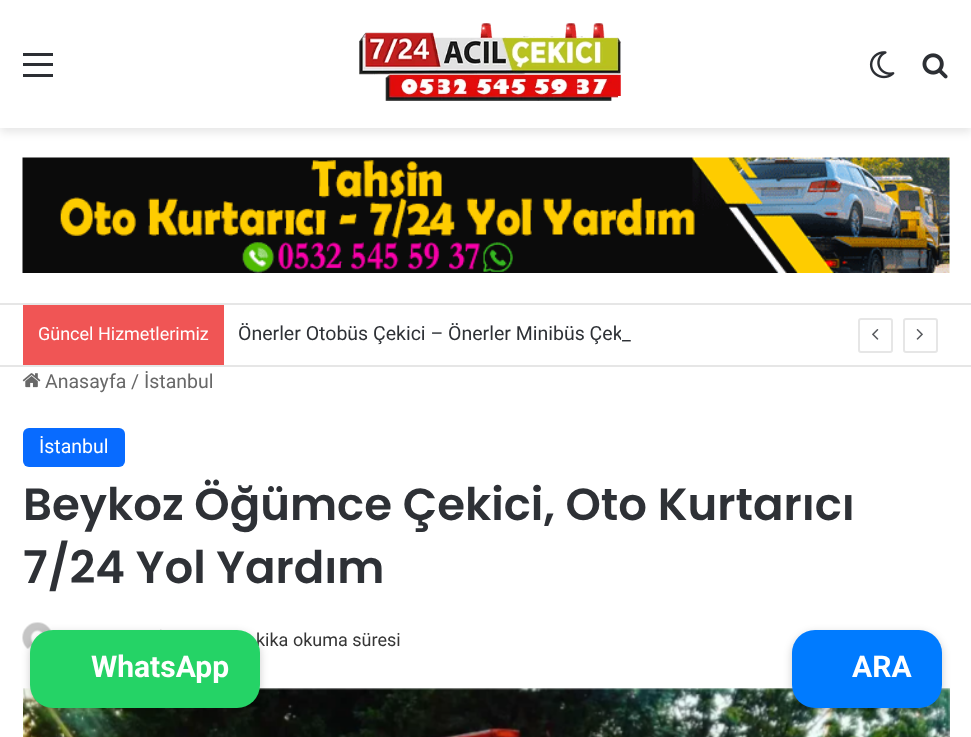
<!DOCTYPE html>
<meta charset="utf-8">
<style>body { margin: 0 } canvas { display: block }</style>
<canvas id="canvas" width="971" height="737"></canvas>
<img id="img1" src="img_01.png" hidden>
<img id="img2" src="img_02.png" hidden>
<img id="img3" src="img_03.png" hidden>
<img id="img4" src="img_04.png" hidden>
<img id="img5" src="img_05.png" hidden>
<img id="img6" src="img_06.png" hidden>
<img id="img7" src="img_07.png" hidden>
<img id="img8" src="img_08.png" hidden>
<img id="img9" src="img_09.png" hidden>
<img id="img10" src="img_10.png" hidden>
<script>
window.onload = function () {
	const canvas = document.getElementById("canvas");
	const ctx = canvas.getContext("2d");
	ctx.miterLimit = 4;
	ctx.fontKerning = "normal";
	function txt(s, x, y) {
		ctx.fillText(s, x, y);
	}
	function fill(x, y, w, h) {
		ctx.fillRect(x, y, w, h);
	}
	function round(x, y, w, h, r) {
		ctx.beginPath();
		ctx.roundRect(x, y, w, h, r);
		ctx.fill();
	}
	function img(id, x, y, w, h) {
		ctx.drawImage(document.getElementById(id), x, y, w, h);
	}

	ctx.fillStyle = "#FFFFFF";
	fill(0, 0, 971, 737);
	ctx.fillStyle = "rgba(0, 0, 0, 0.1)";
	ctx.filter = "blur(5px)";
	ctx.beginPath();
	ctx.rect(0, 5, 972, 127);
	ctx.fill();
	ctx.filter = "none";
	ctx.fillStyle = "#FFFFFF";
	fill(0, 0, 971, 128);
	ctx.fillStyle = "#2C2F34";
	fill(23, 63, 30, 3);
	fill(23, 53, 30, 3);
	fill(23, 74, 30, 3);
	img("img1", 359, 23, 262, 78);
	img("img2", 869, 51, 26, 28);
	img("img3", 922, 53, 26, 26);
	img("img4", 22, 157, 928, 116);
	ctx.fillStyle = "#E6E6E6";
	fill(0, 303, 971, 2);
	fill(0, 365, 971, 2);
	ctx.fillStyle = "#F05555";
	fill(23, 305, 201, 60);
	ctx.beginPath();
	ctx.roundRect(859, 319, 33, 33, 2);
	ctx.strokeStyle = "#E6E6E6";
	ctx.lineWidth = 2;
	ctx.stroke();
	img("img5", 872, 329, 7, 11);
	ctx.beginPath();
	ctx.roundRect(904, 319, 33, 33, 2);
	ctx.stroke();
	img("img6", 916, 329, 7, 11);
	img("img7", 22, 373, 19, 15);
	ctx.fillStyle = "#086BFF";
	round(23, 428, 102, 39, 6);
	img("img8", 22, 622, 30, 27);
	img("img9", 160, 629, 2, 1);
	img("img10", 23, 688, 927, 49);
	ctx.fillStyle = "rgba(0, 0, 0, 0.2)";
	ctx.filter = "blur(4px)";
	ctx.beginPath();
	ctx.roundRect(30, 633, 230, 78, 23);
	ctx.fill();
	ctx.filter = "none";
	ctx.filter = "blur(4px)";
	ctx.beginPath();
	ctx.roundRect(792, 633, 150, 78, 23);
	ctx.fill();
	ctx.filter = "none";
	ctx.fillStyle = "#007BFF";
	round(792, 630, 150, 78, 23);
	ctx.font = "18px Roboto";
	ctx.fillStyle = "#FFFFFF";
	txt("Güncel Hizmetlerimiz", 38, 340);
	ctx.font = "19.5px Roboto";
	ctx.fillStyle = "#2E3136";
	txt("Önerler Otobüs Çekici – Önerler Minibüs Çek", 238, 340);
	ctx.fillStyle = "#FFFFFF";
	fill(621, 329, 2, 11);
	ctx.fillStyle = "#2E3136";
	txt("_", 622, 340);
	ctx.fillStyle = "#686868";
	txt("Anasayfa", 45, 388);
	txt("/", 131, 388);
	txt("İstanbul", 144, 388);
	ctx.fillStyle = "#FFFFFF";
	txt("İstanbul", 39, 453);
	ctx.font = "600 45px Poppins";
	ctx.fillStyle = "#2E3136";
	txt("Beykoz Öğümce Çekici, Oto Kurtarıcı", 23, 520);
	txt("7/24 Yol Yardım", 23, 583);
	ctx.font = "18px Roboto";
	ctx.fillStyle = "#353535";
	txt("kika okuma süresi", 256, 646);
	ctx.fillStyle = "#25D366";
	round(30, 630, 230, 78, 23);
	ctx.font = "bold 30px Roboto";
	ctx.fillStyle = "#FFFFFF";
	txt("WhatsApp", 91, 677);
	txt("ARA", 852, 677);
};
</script>
